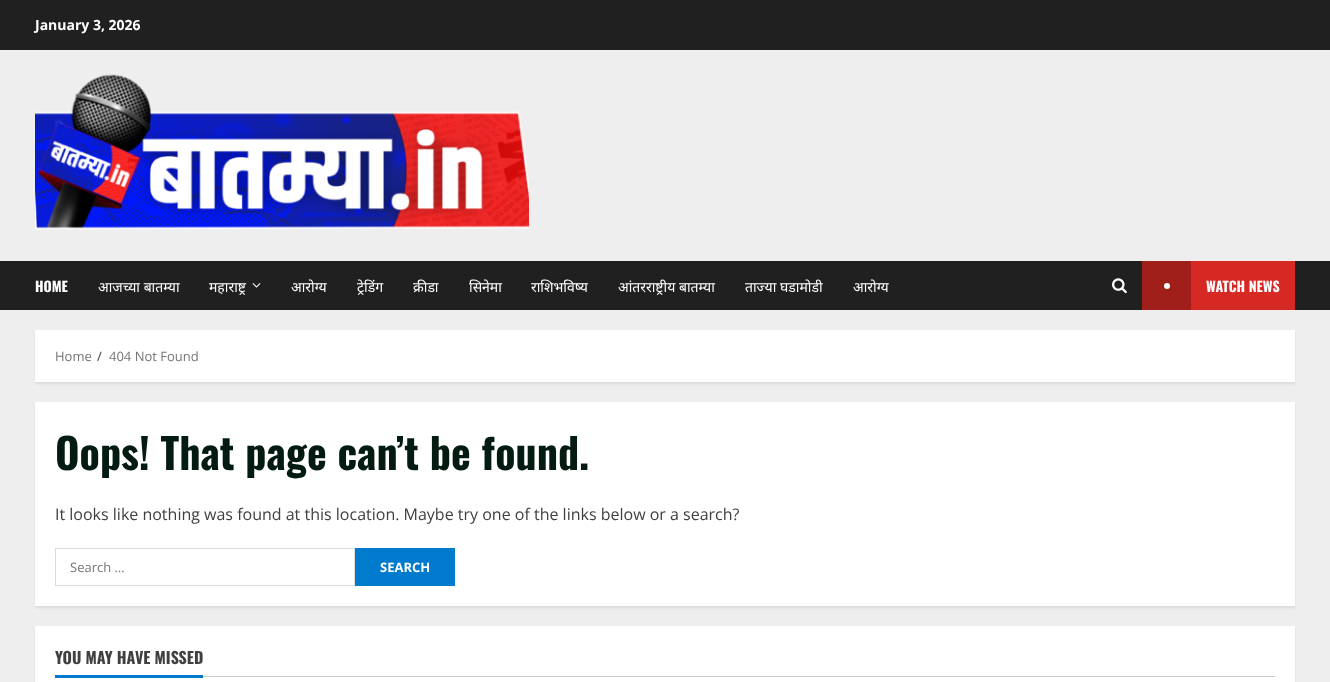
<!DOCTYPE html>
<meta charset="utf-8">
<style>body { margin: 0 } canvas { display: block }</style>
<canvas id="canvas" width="1330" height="682"></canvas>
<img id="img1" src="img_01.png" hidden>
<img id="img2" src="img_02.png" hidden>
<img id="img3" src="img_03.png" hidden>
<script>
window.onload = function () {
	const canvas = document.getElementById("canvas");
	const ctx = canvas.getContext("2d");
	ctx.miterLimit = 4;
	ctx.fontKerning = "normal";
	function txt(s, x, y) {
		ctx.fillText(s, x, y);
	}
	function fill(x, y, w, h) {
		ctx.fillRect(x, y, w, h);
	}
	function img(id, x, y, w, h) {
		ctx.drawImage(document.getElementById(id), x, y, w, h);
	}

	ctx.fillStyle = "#EEEEEE";
	fill(0, 0, 1330, 682);
	ctx.fillStyle = "#202020";
	fill(0, 0, 1330, 50);
	img("img1", 35, 74, 494, 156);
	fill(0, 261, 1330, 49);
	img("img2", 252, 283, 9, 5);
	img("img3", 1112, 278, 15, 16);
	ctx.fillStyle = "#D72924";
	fill(1191, 261, 104, 49);
	ctx.fillStyle = "#A11F1B";
	fill(1142, 261, 49, 49);
	ctx.fillStyle = "#FFFFFF";
	ctx.beginPath();
	ctx.arc(1167, 286, 3, 0, Math.PI * 2);
	ctx.fill();
	ctx.fillStyle = "rgba(0, 0, 0, 0.08)";
	ctx.filter = "blur(1px)";
	ctx.beginPath();
	ctx.rect(35, 332, 1260, 52);
	ctx.fill();
	ctx.filter = "none";
	ctx.fillStyle = "#FFFFFF";
	fill(35, 330, 1260, 52);
	ctx.fillStyle = "rgba(0, 0, 0, 0.08)";
	ctx.filter = "blur(1px)";
	ctx.beginPath();
	ctx.rect(35, 404, 1260, 204);
	ctx.fill();
	ctx.filter = "none";
	ctx.fillStyle = "#FFFFFF";
	fill(35, 402, 1260, 204);
	ctx.strokeStyle = "#DCDCDC";
	ctx.strokeRect(55.5, 548.5, 299, 37);
	ctx.fillStyle = "#007ACC";
	fill(355, 548, 100, 38);
	ctx.fillStyle = "rgba(0, 0, 0, 0.08)";
	ctx.filter = "blur(1px)";
	ctx.beginPath();
	ctx.rect(35, 628, 1260, 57);
	ctx.fill();
	ctx.filter = "none";
	ctx.fillStyle = "#FFFFFF";
	fill(35, 626, 1260, 56);
	ctx.fillStyle = "#CCCCCC";
	fill(203, 676, 1072, 1);
	ctx.fillStyle = "#007ACC";
	fill(55, 675, 148, 3);
	ctx.font = "bold 14px Open Sans";
	ctx.fillStyle = "#FFFFFF";
	txt("January 3, 2026", 35, 30);
	ctx.font = "bold 14px Oswald";
	txt("HOME", 35, 292);
	ctx.font = "14px Noto Sans";
	txt("आजच्या बातम्या", 98, 292);
	txt("महाराष्ट्र", 209, 292);
	txt("आरोग्य", 291, 292);
	txt("ट्रेडिंग", 357, 292);
	txt("क्रीडा", 413, 292);
	txt("सिनेमा", 469, 292);
	txt("राशिभविष्य", 531, 292);
	txt("आंतरराष्ट्रीय बातम्या", 618, 292);
	txt("ताज्या घडामोडी", 745, 292);
	txt("आरोग्य", 853, 292);
	ctx.font = "bold 14px Oswald";
	txt("WATCH NEWS", 1206, 292);
	ctx.font = "13px Open Sans";
	ctx.fillStyle = "#757575";
	txt("Home", 55, 361);
	ctx.fillStyle = "#404040";
	txt("/", 97, 361);
	ctx.fillStyle = "#757575";
	txt("404 Not Found", 109, 361);
	ctx.font = "bold 42px Oswald";
	ctx.fillStyle = "#031B11";
	txt("Oops! That page can’t be found.", 55, 470);
	ctx.font = "16px Open Sans";
	ctx.fillStyle = "#404040";
	txt("It looks like nothing was found at this location. Maybe try one of the links below or a search?", 55, 520);
	ctx.font = "13px Open Sans";
	ctx.fillStyle = "#757575";
	txt("Search …", 70, 572);
	ctx.font = "bold 13px Open Sans";
	ctx.fillStyle = "#FFFFFF";
	txt("SEARCH", 380, 572);
	ctx.font = "bold 16px Oswald";
	ctx.fillStyle = "#404040";
	txt("YOU MAY HAVE MISSED", 55, 664);
};
</script>
